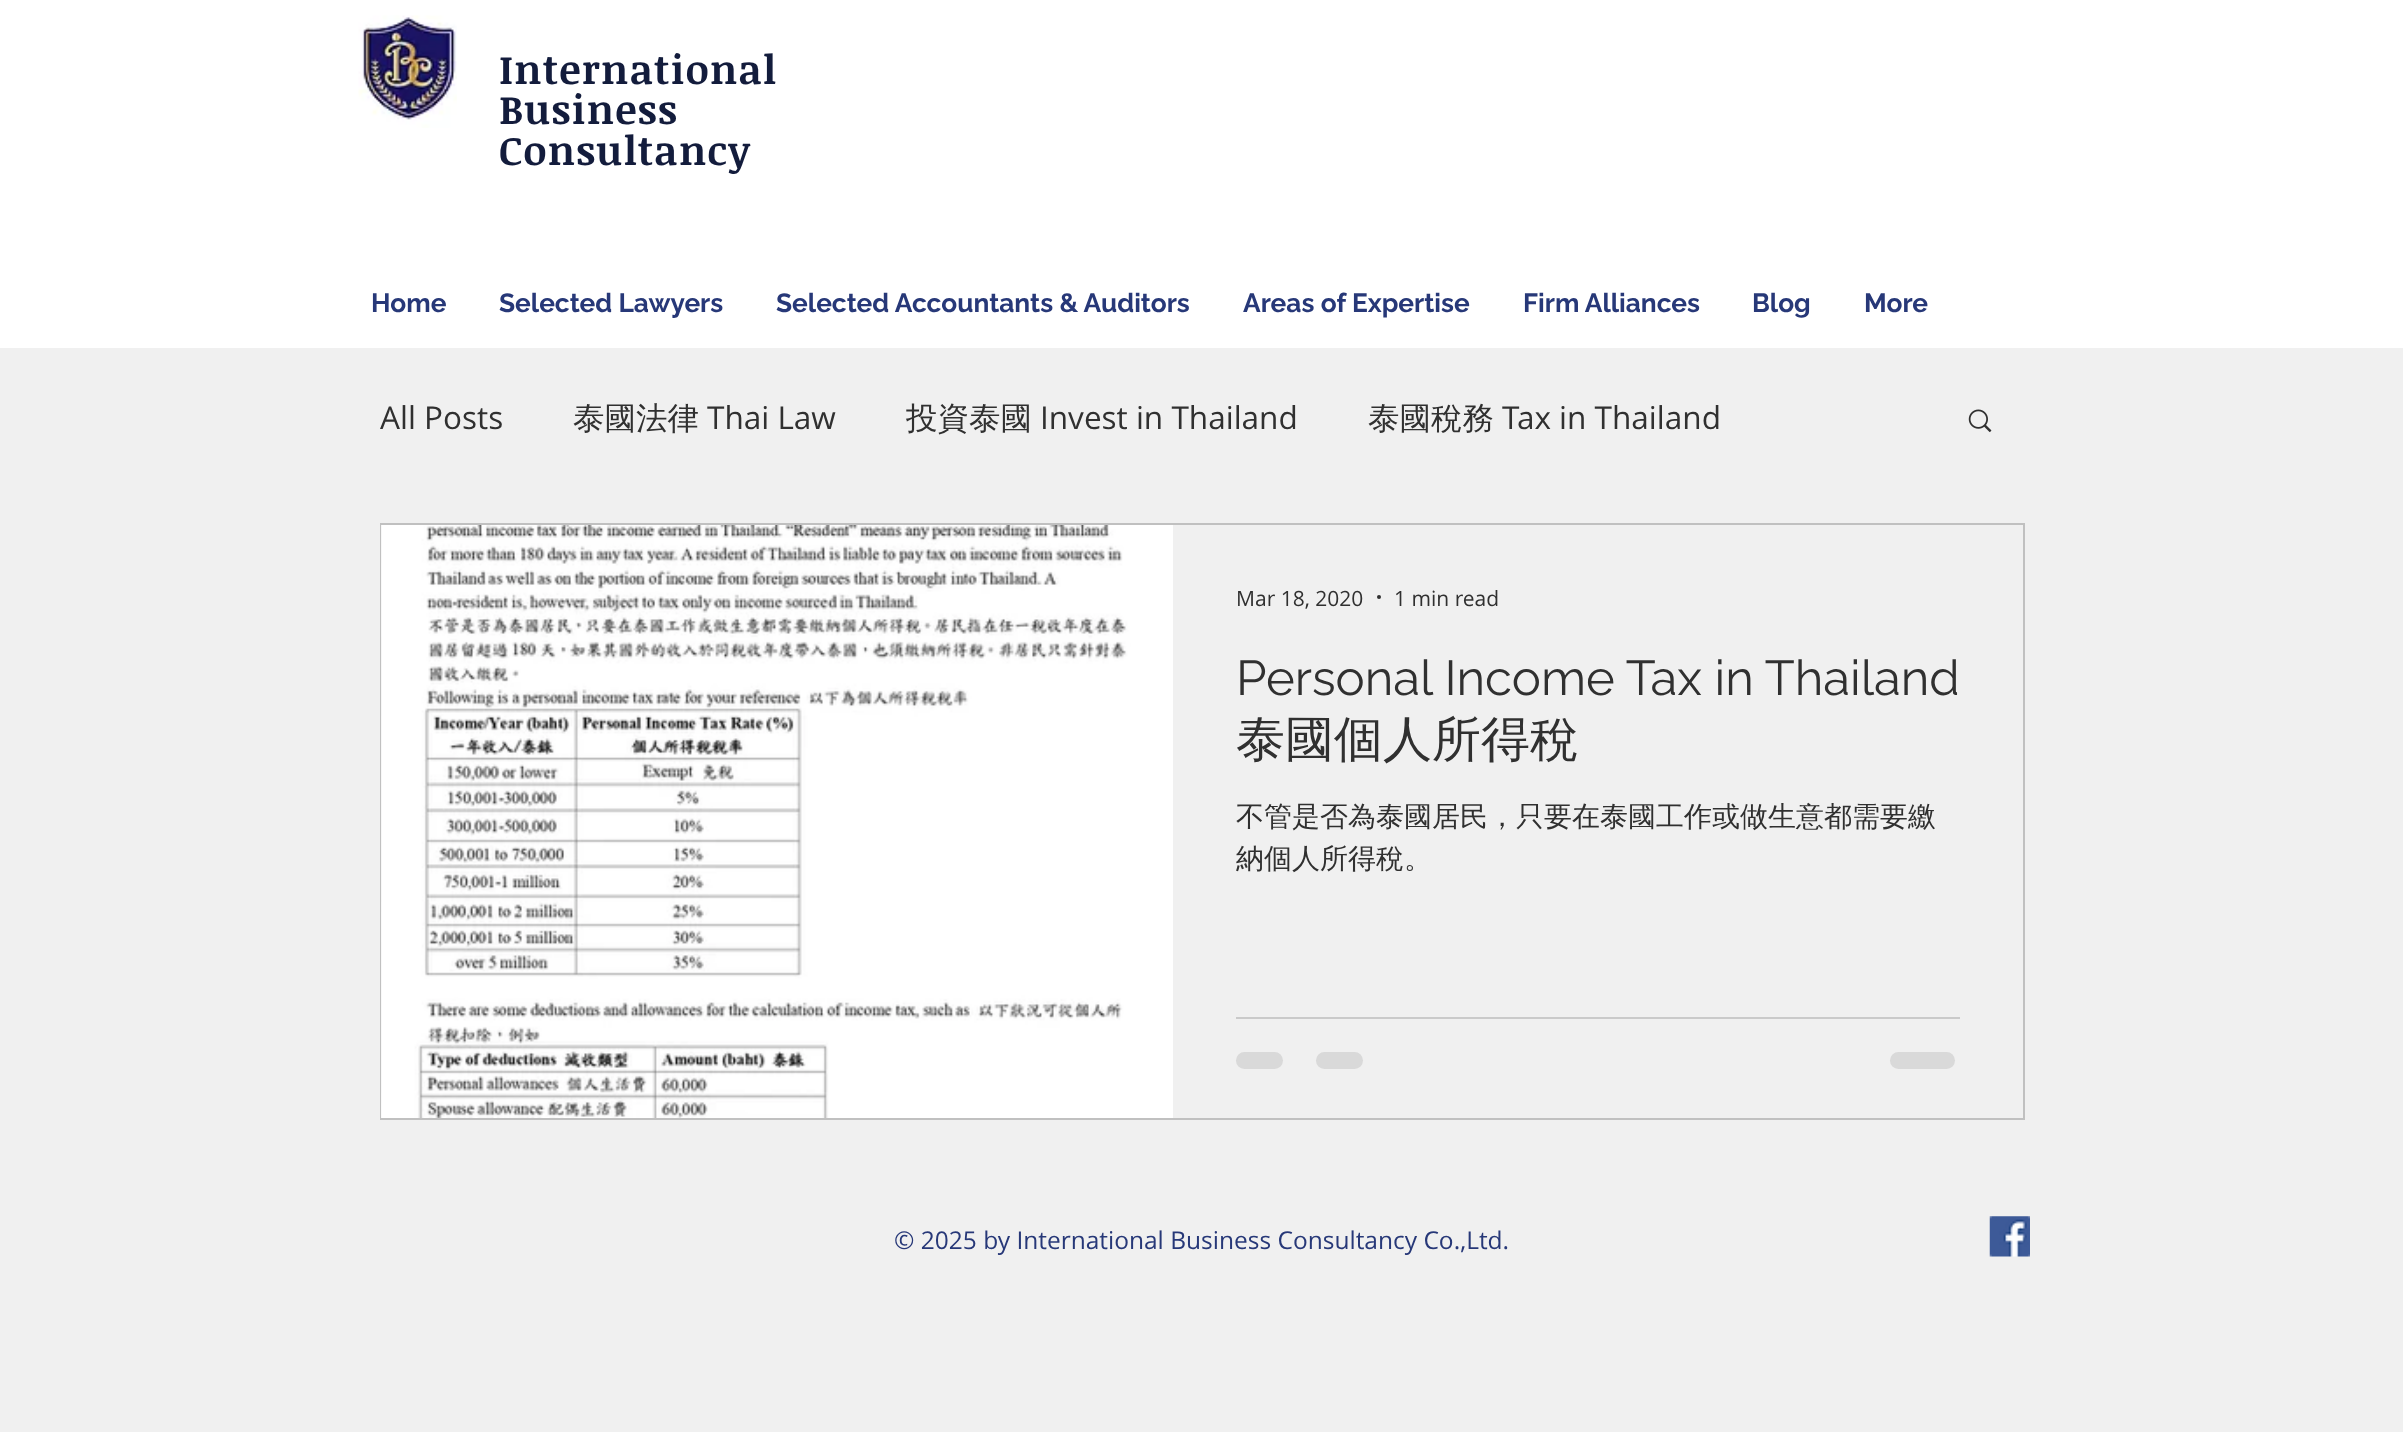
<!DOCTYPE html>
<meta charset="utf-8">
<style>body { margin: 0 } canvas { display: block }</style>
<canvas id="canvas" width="2403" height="1432"></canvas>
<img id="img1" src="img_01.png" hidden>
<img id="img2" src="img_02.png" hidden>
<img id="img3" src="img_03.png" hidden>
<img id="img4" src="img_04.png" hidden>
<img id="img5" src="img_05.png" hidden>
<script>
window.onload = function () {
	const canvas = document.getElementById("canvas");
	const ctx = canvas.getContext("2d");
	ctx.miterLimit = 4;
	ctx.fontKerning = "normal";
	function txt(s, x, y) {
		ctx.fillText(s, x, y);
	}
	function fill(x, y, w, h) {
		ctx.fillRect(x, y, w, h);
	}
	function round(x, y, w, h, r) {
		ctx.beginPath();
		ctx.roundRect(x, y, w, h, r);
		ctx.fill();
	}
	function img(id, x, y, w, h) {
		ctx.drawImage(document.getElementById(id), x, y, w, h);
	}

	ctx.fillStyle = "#F0F0F0";
	fill(0, 0, 2403, 1432);
	ctx.fillStyle = "#FFFFFF";
	fill(0, 0, 2403, 348);
	img("img1", 358, 15, 99, 113);
	img("img2", 1968, 409, 24, 24);
	ctx.strokeStyle = "#C0C0C0";
	ctx.lineWidth = 2;
	ctx.strokeRect(381, 524, 1643, 595);
	img("img3", 381, 525, 1, 593);
	img("img4", 382, 525, 791, 593);
	ctx.fillStyle = "#303030";
	ctx.beginPath();
	ctx.arc(1379, 597, 2, 0, Math.PI * 2);
	ctx.fill();
	ctx.fillStyle = "#CACACA";
	fill(1236, 1017, 724, 2);
	ctx.fillStyle = "#D9D9D9";
	round(1236, 1052, 47, 17, 8.5);
	round(1316, 1052, 47, 17, 8.5);
	round(1890, 1052, 65, 17, 8.5);
	img("img5", 1989, 1216, 41, 41);
	ctx.letterSpacing = "1.25px";
	ctx.font = "bold 40.25px Noticia Text";
	ctx.fillStyle = "#131C3C";
	txt("International", 499, 84);
	txt("Business", 499, 124);
	txt("Consultancy", 499, 165);
	ctx.letterSpacing = "0px";
	ctx.font = "bold 26.25px Raleway";
	ctx.fillStyle = "#273878";
	txt("Home", 371, 312);
	txt("Selected Lawyers", 499, 312);
	txt("Selected Accountants & Auditors", 776, 312);
	txt("Areas of Expertise", 1243, 312);
	txt("Firm Alliances", 1523, 312);
	txt("Blog", 1752, 312);
	txt("More", 1864, 312);
	ctx.font = "31.5px Open Sans";
	ctx.fillStyle = "#303030";
	txt("All Posts", 380, 429);
	ctx.font = "500 31.5px WenQuanYi Zen Hei";
	txt("泰國法律", 573, 429);
	ctx.font = "31.5px Open Sans";
	txt("Thai Law", 707, 429);
	ctx.font = "500 31.5px WenQuanYi Zen Hei";
	txt("投資泰國", 906, 429);
	ctx.font = "31.5px Open Sans";
	txt("Invest in Thailand", 1040, 429);
	ctx.font = "500 31.5px WenQuanYi Zen Hei";
	txt("泰國稅務", 1368, 429);
	ctx.font = "31.5px Open Sans";
	txt("Tax in Thailand", 1502, 429);
	ctx.font = "21px Open Sans";
	txt("Mar 18, 2020", 1236, 606);
	txt("1 min read", 1394, 606);
	ctx.font = "49px Raleway";
	txt("Personal Income Tax in Thailand", 1236, 695);
	ctx.font = "500 49px WenQuanYi Zen Hei";
	txt("泰國個人所得稅", 1236, 756);
	ctx.font = "500 28px WenQuanYi Zen Hei";
	txt("不管是否為泰國居民，只要在泰國工作或做生意都需要繳", 1236, 826);
	txt("納個人所得稅。", 1236, 868);
	ctx.font = "24.5px Open Sans";
	ctx.fillStyle = "#273878";
	txt("© 2025 by International Business Consultancy Co.,Ltd.", 894, 1249);
};
</script>
